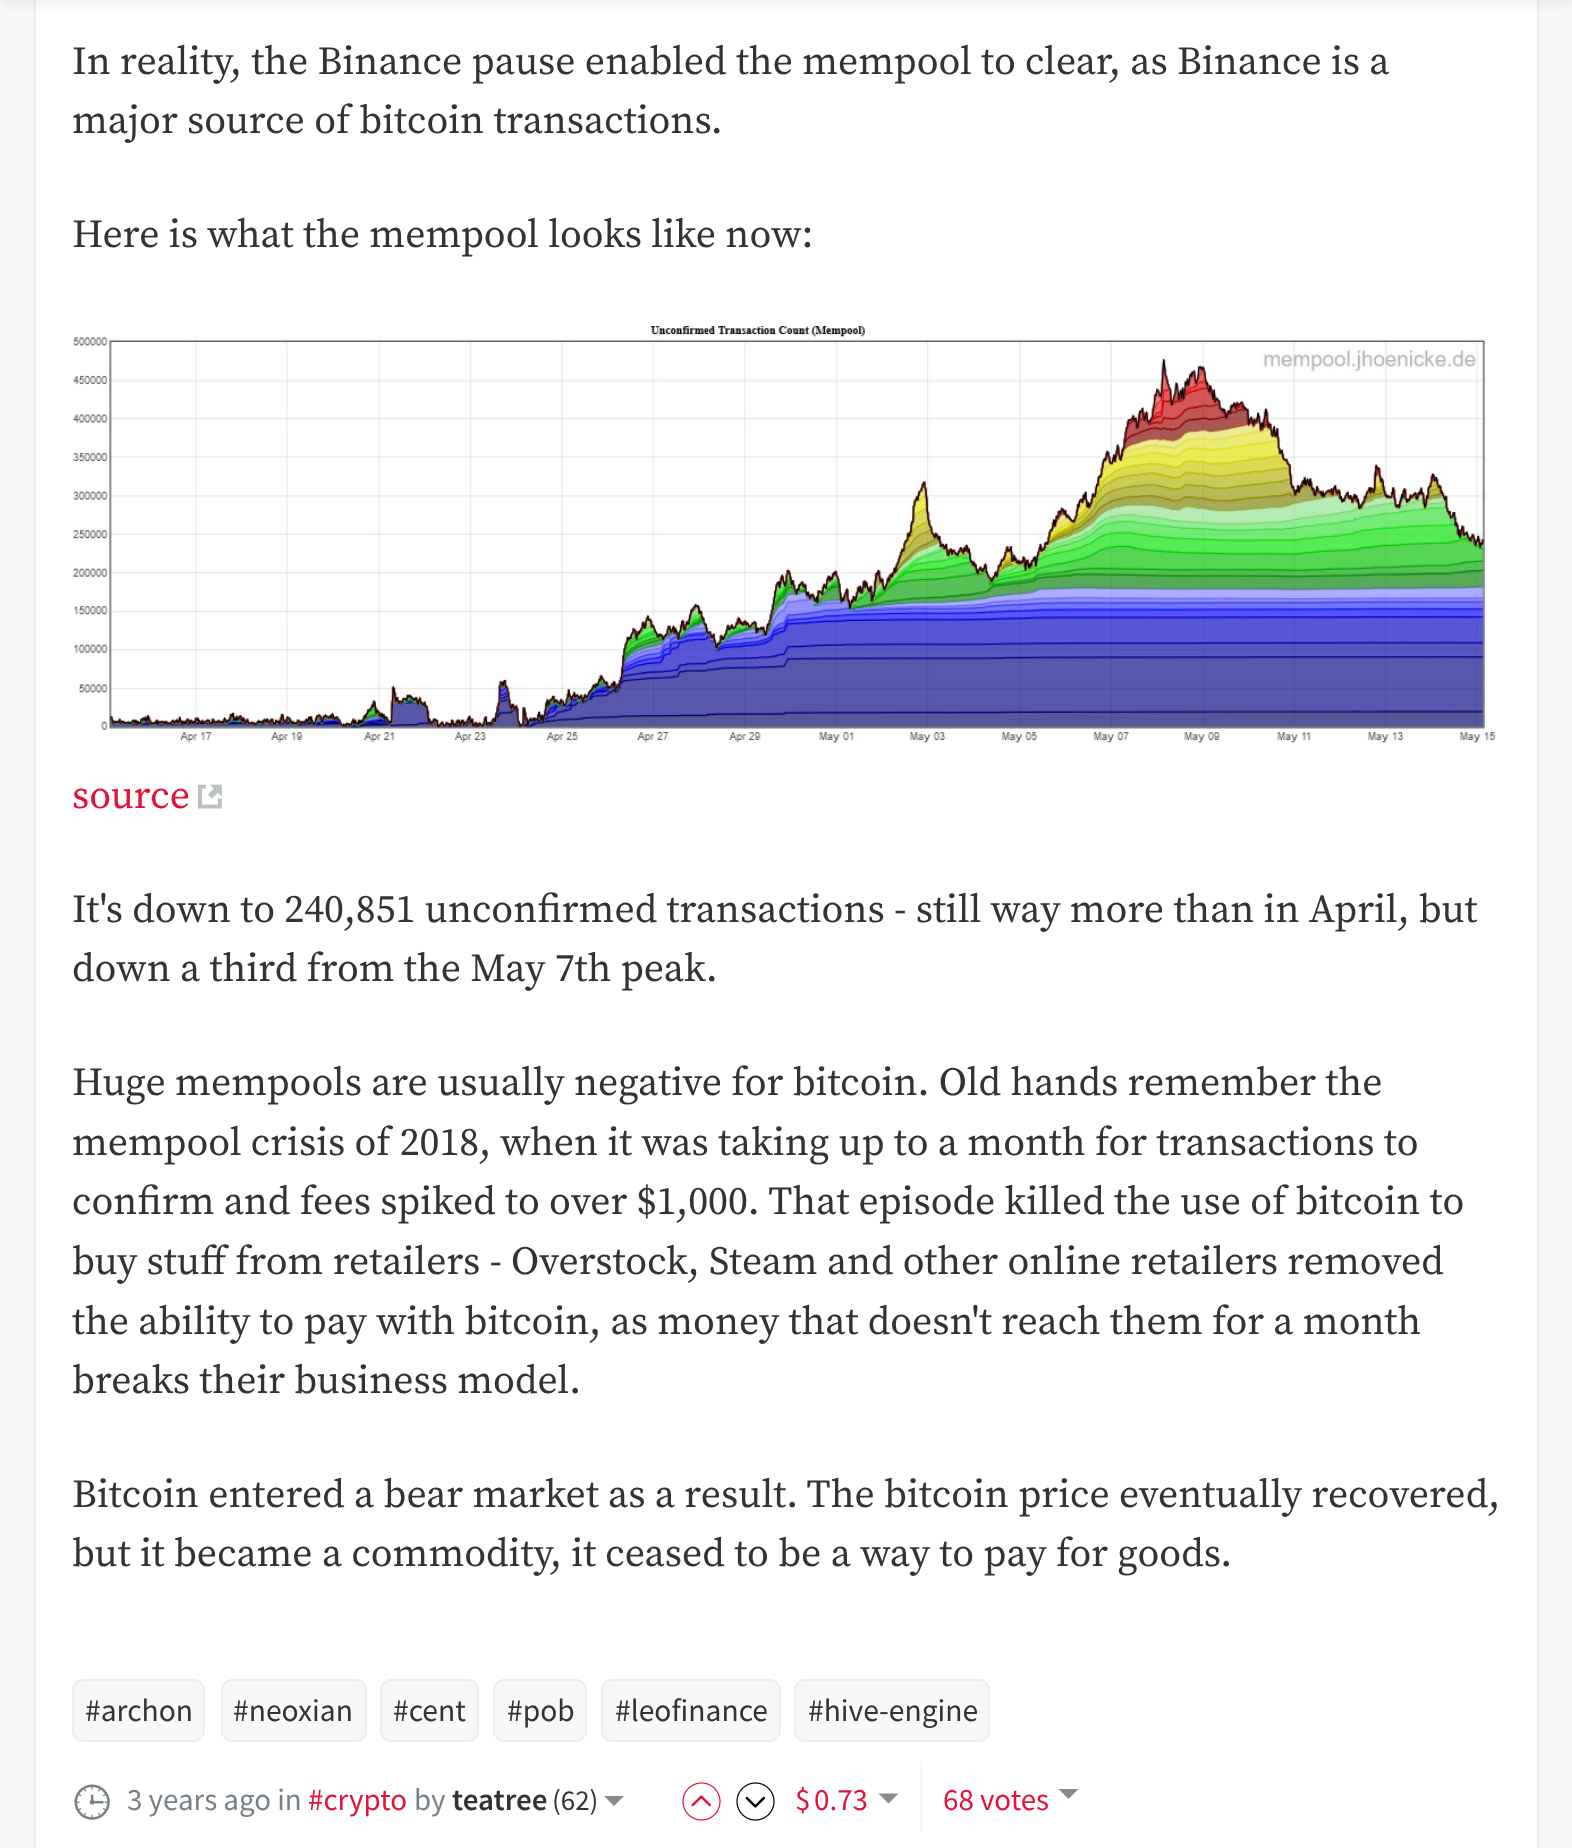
<!DOCTYPE html>
<meta charset="utf-8">
<style>body { margin: 0 } canvas { display: block }</style>
<canvas id="canvas" width="1572" height="1848"></canvas>
<img id="img1" src="img_01.png" hidden>
<img id="img2" src="img_02.png" hidden>
<img id="img3" src="img_03.png" hidden>
<img id="img4" src="img_04.png" hidden>
<img id="img5" src="img_05.png" hidden>
<script>
window.onload = function () {
	const canvas = document.getElementById("canvas");
	const ctx = canvas.getContext("2d");
	ctx.miterLimit = 4;
	ctx.fontKerning = "normal";
	function txt(s, x, y) {
		ctx.fillText(s, x, y);
	}
	function fill(x, y, w, h) {
		ctx.fillRect(x, y, w, h);
	}
	function img(id, x, y, w, h) {
		ctx.drawImage(document.getElementById(id), x, y, w, h);
	}

	ctx.fillStyle = "#F8F8F8";
	fill(0, 0, 1572, 1848);
	ctx.fillStyle = "#FFFFFF";
	ctx.beginPath();
	ctx.rect(35, -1, 1503, 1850);
	ctx.fill();
	ctx.strokeStyle = "#EEEEEE";
	ctx.lineWidth = 2;
	ctx.stroke();
	ctx.fillStyle = "rgba(0, 0, 0, 0.05)";
	ctx.filter = "blur(4.5px)";
	ctx.beginPath();
	ctx.rect(0, -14, 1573, 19);
	ctx.fill();
	ctx.filter = "none";
	img("img1", 73, 325, 1423, 418);
	img("img2", 198, 784, 24, 25);
	ctx.fillStyle = "#F8F8F8";
	ctx.beginPath();
	ctx.roundRect(73, 1680, 131, 61, 10);
	ctx.fill();
	ctx.stroke();
	ctx.beginPath();
	ctx.roundRect(222, 1680, 144, 61, 10);
	ctx.fill();
	ctx.stroke();
	ctx.beginPath();
	ctx.roundRect(381, 1680, 97, 61, 10);
	ctx.fill();
	ctx.stroke();
	ctx.beginPath();
	ctx.roundRect(494, 1680, 92, 61, 10);
	ctx.fill();
	ctx.stroke();
	ctx.beginPath();
	ctx.roundRect(602, 1680, 178, 61, 10);
	ctx.fill();
	ctx.stroke();
	ctx.beginPath();
	ctx.roundRect(795, 1680, 194, 61, 10);
	ctx.fill();
	ctx.stroke();
	img("img3", 74, 1784, 36, 36);
	ctx.fillStyle = "#8A8A8A";
	ctx.beginPath();
	ctx.moveTo(604, 1796);
	ctx.lineTo(614, 1806);
	ctx.lineTo(624, 1796);
	ctx.closePath();
	ctx.fill();
	ctx.fillStyle = "#F6F6F6";
	fill(920, 1762, 2, 72);
	img("img4", 682, 1782, 39, 39);
	img("img5", 736, 1782, 39, 39);
	ctx.fillStyle = "#8A8A8A";
	ctx.beginPath();
	ctx.moveTo(878.5, 1793.5);
	ctx.lineTo(888.5, 1803.5);
	ctx.lineTo(898.5, 1793.5);
	ctx.closePath();
	ctx.fill();
	ctx.beginPath();
	ctx.moveTo(1058.5, 1789);
	ctx.lineTo(1068.5, 1799);
	ctx.lineTo(1078.5, 1789);
	ctx.closePath();
	ctx.fill();
	ctx.font = "39.75px Source Serif Pro";
	ctx.fillStyle = "#333333";
	txt("In reality, the Binance pause enabled the mempool to clear, as Binance is a", 72, 74);
	txt("major source of bitcoin transactions.", 72, 133);
	txt("Here is what the mempool looks like now:", 72, 247);
	ctx.fillStyle = "#E31337";
	txt("source", 72, 808);
	ctx.fillStyle = "#333333";
	txt("It's down to 240,851 unconfirmed transactions - still way more than in April, but", 72, 922);
	txt("down a third from the May 7th peak.", 72, 981);
	txt("Huge mempools are usually negative for bitcoin. Old hands remember the", 72, 1095);
	txt("mempool crisis of 2018, when it was taking up to a month for transactions to", 72, 1155);
	txt("confirm and fees spiked to over $1,000. That episode killed the use of bitcoin to", 72, 1214);
	txt("buy stuff from retailers - Overstock, Steam and other online retailers removed", 72, 1274);
	txt("the ability to pay with bitcoin, as money that doesn't reach them for a month", 72, 1334);
	txt("breaks their business model.", 72, 1393);
	txt("Bitcoin entered a bear market as a result. The bitcoin price eventually recovered,", 72, 1507);
	txt("but it became a commodity, it ceased to be a way to pay for goods.", 72, 1566);
	ctx.font = "31.5px Source Sans Pro";
	txt("#archon", 85, 1721);
	txt("#neoxian", 233, 1721);
	txt("#cent", 393, 1721);
	txt("#pob", 507, 1721);
	txt("#leofinance", 615, 1721);
	txt("#hive-engine", 808, 1721);
	ctx.font = "31px Source Sans Pro";
	ctx.fillStyle = "#788187";
	txt("3 years ago in", 127, 1810);
	ctx.fillStyle = "#E31337";
	txt("#crypto", 308, 1810);
	ctx.fillStyle = "#788187";
	txt("by", 414, 1810);
	ctx.font = "600 31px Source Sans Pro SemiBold";
	ctx.fillStyle = "#333333";
	txt("teatree", 452, 1810);
	ctx.font = "29px Source Sans Pro";
	txt("(62)", 552, 1810);
	ctx.font = "31px Source Sans Pro";
	ctx.fillStyle = "#E31337";
	txt("$", 795, 1810);
	txt("0.73", 814, 1810);
	txt("68 votes", 943, 1810);
};
</script>
